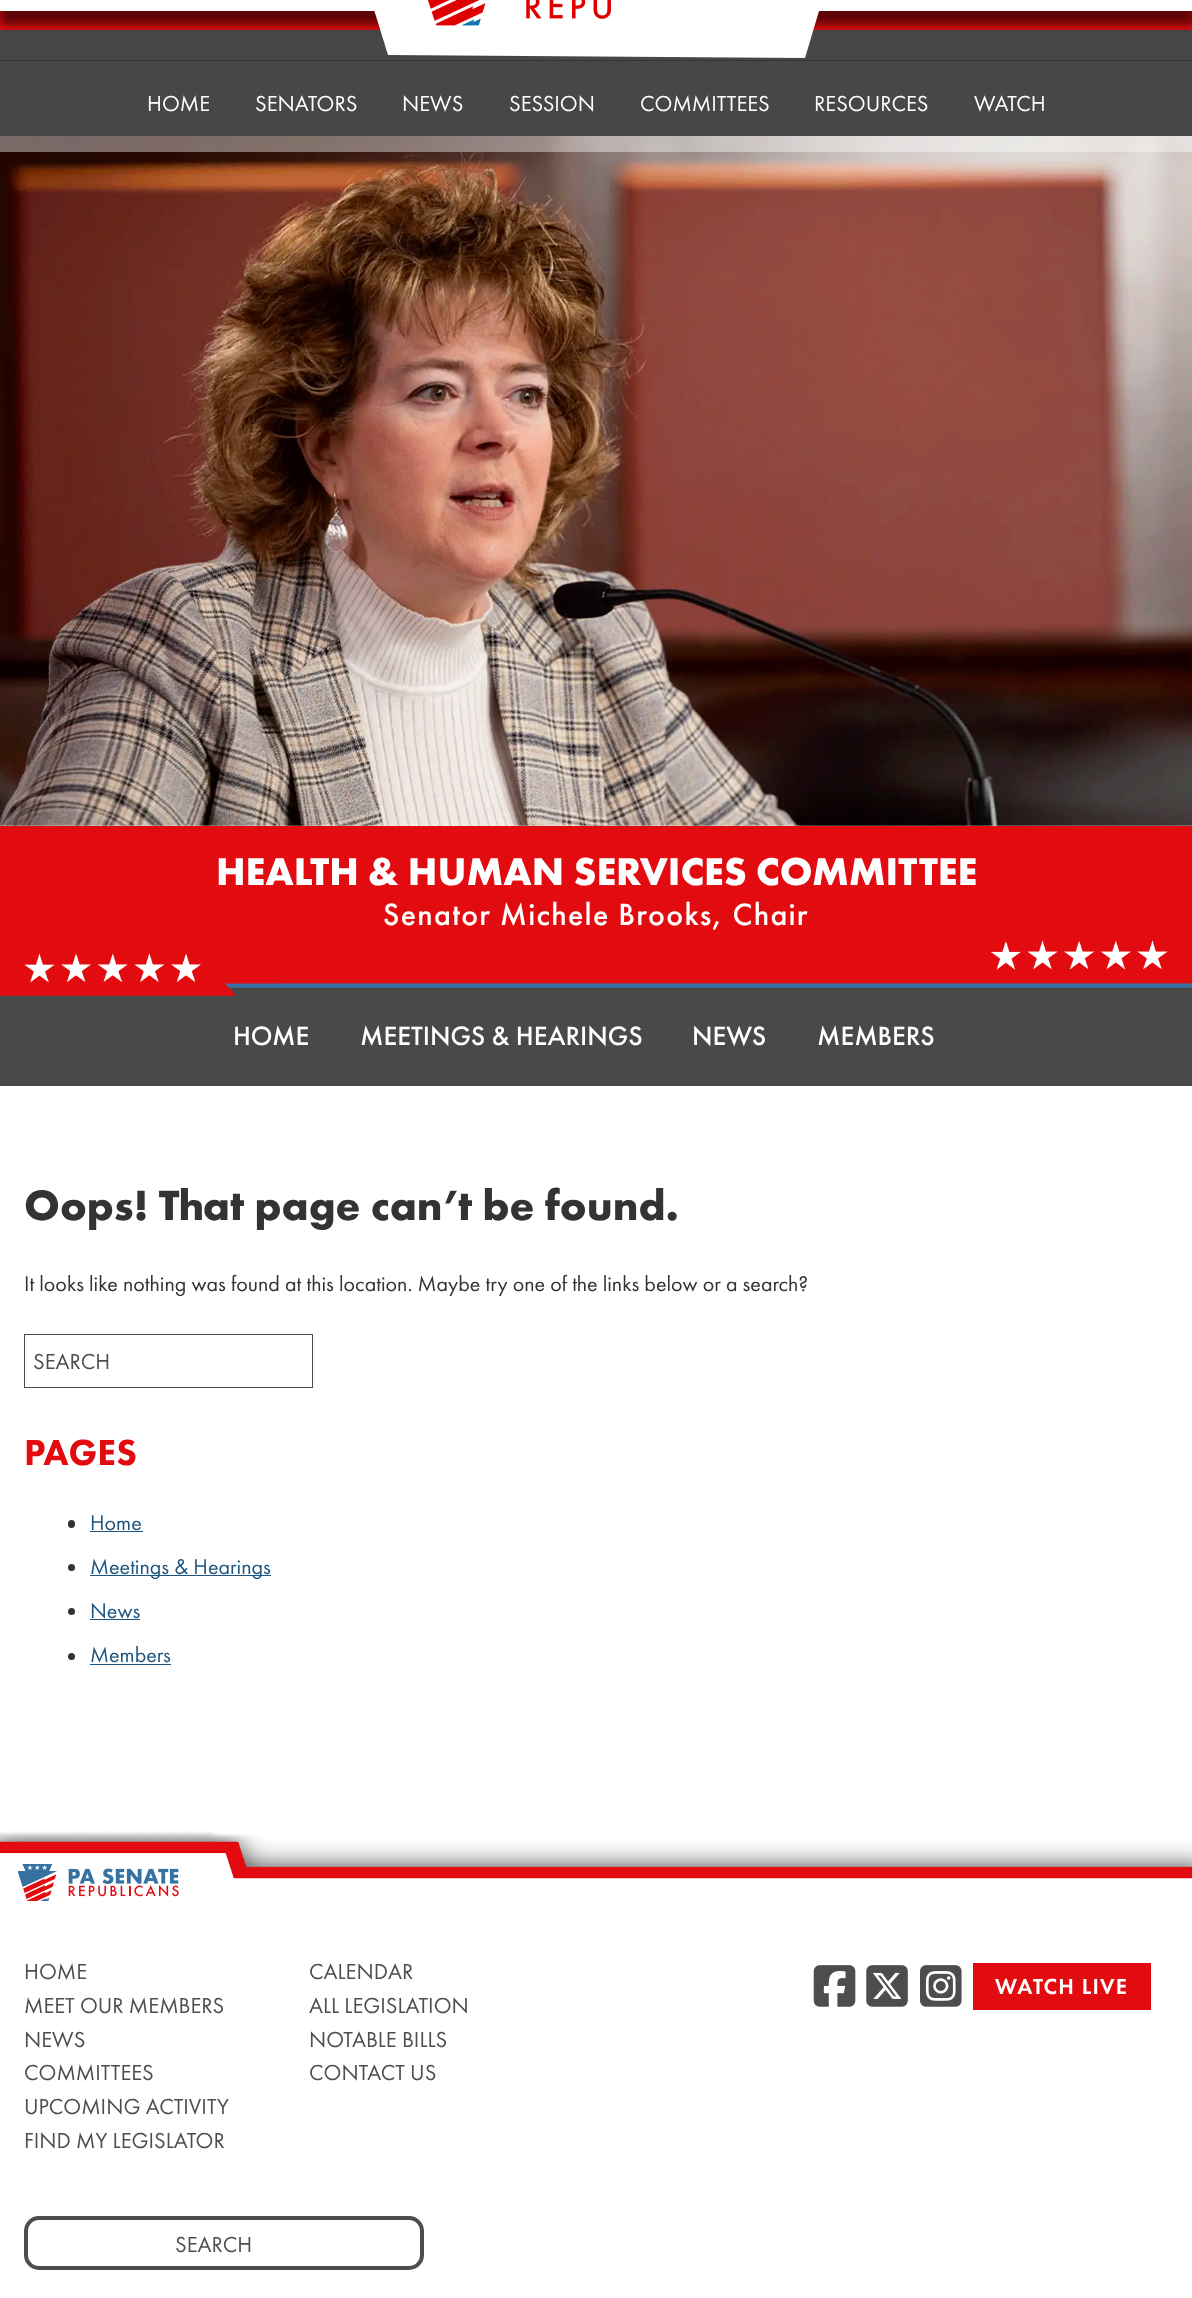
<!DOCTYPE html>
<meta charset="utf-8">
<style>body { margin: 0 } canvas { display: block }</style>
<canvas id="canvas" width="1192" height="2298"></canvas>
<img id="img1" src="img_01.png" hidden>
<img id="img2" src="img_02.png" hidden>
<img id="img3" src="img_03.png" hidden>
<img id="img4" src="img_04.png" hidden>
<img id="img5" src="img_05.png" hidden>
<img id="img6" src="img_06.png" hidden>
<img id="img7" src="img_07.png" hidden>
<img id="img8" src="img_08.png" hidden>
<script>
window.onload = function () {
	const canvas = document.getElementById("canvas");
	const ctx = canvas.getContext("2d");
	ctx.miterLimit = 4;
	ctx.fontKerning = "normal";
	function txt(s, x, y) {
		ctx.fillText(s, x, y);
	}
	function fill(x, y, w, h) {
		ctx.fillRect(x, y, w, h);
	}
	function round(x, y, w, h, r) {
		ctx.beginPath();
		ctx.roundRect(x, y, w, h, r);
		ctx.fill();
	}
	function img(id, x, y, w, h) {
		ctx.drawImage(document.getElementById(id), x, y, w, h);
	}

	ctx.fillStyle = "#FFFFFF";
	fill(0, 0, 1192, 2298);
	ctx.fillStyle = "#474747";
	fill(0, 30, 1192, 31);
	ctx.fillStyle = "#E20C10";
	fill(0, 11, 1192, 19);
	ctx.fillStyle = "rgba(0, 0, 0, 0.59)";
	ctx.filter = "blur(5px)";
	ctx.beginPath();
	ctx.rect(0, -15, 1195, 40);
	ctx.fill();
	ctx.filter = "none";
	ctx.fillStyle = "#FFFFFF";
	fill(0, 0, 1192, 11);
	ctx.beginPath();
	ctx.moveTo(354, -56);
	ctx.lineTo(839, -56);
	ctx.lineTo(805, 58);
	ctx.lineTo(388, 55);
	ctx.lineTo(354, -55);
	ctx.closePath();
	ctx.fill();
	img("img1", 428, 0, 183, 26);
	img("img2", 0, 135, 1192, 691);
	ctx.fillStyle = "rgba(255, 255, 255, 0.4)";
	fill(0, 135, 1192, 17);
	ctx.fillStyle = "rgba(255, 255, 255, 0.1)";
	fill(0, 135, 563, 1);
	ctx.fillStyle = "rgba(51, 51, 51, 0.9)";
	fill(0, 60, 1192, 76);
	ctx.fillStyle = "#E20C10";
	fill(0, 826, 1192, 114);
	ctx.fillStyle = "#494949";
	fill(0, 987, 1192, 99);
	img("img3", 0, 940, 1192, 56);
	ctx.strokeStyle = "#4D4D4D";
	ctx.strokeRect(24.5, 1334.5, 288, 53);
	ctx.fillStyle = "#333333";
	round(68, 1520, 7, 8, 3.5);
	ctx.fillStyle = "#1D5580";
	fill(90, 1531, 53, 1);
	ctx.fillStyle = "#333333";
	ctx.beginPath();
	ctx.arc(71.5, 1567.5, 3.5, 0, Math.PI * 2);
	ctx.fill();
	ctx.fillStyle = "#1D5580";
	fill(90, 1575, 181, 1);
	ctx.fillStyle = "#333333";
	ctx.beginPath();
	ctx.arc(71.5, 1611.5, 3.5, 0, Math.PI * 2);
	ctx.fill();
	ctx.fillStyle = "#1D5580";
	fill(90, 1619, 50, 1);
	ctx.fillStyle = "#333333";
	ctx.beginPath();
	ctx.arc(71.5, 1656.5, 3.5, 0, Math.PI * 2);
	ctx.fill();
	ctx.fillStyle = "#1D5580";
	fill(90, 1664, 81, 1);
	img("img4", 0, 1831, 1192, 48);
	img("img5", 18, 1864, 161, 37);
	ctx.beginPath();
	ctx.roundRect(26, 2218, 396, 50, 13);
	ctx.lineWidth = 4;
	ctx.stroke();
	img("img6", 813, 1965, 43, 42);
	img("img7", 866, 1965, 42, 42);
	img("img8", 920, 1965, 42, 42);
	ctx.fillStyle = "#E20C10";
	fill(973, 1963, 178, 47);
	ctx.font = "22.5px Futura PT";
	ctx.fillStyle = "#FFFFFF";
	txt("HOME", 147, 111);
	txt("SENATORS", 255, 111);
	txt("NEWS", 402, 111);
	txt("SESSION", 509, 111);
	txt("COMMITTEES", 640, 111);
	txt("RESOURCES", 814, 111);
	txt("WATCH", 974, 111);
	ctx.font = "bold 40.2px Futura PT";
	txt("HEALTH & HUMAN SERVICES COMMITTEE", 216, 885);
	ctx.letterSpacing = "1.25px";
	ctx.font = "500 31.9px Futura PT";
	txt("Senator Michele Brooks, Chair", 383, 925);
	ctx.letterSpacing = "0px";
	ctx.font = "500 27.5px Futura PT";
	txt("HOME", 233, 1045);
	txt("MEETINGS & HEARINGS", 360, 1045);
	txt("NEWS", 692, 1045);
	txt("MEMBERS", 817, 1045);
	ctx.font = "bold 44px Futura PT";
	ctx.fillStyle = "#333333";
	txt("Oops! That page can’t be found.", 24, 1220);
	ctx.font = "22px Futura PT";
	txt("It looks like nothing was found at this location. Maybe try one of the links below or a search?", 24, 1291);
	ctx.font = "22.5px Futura PT";
	ctx.fillStyle = "#4D4D4D";
	txt("SEARCH", 33, 1369);
	ctx.font = "900 37.5px Futura PT";
	ctx.fillStyle = "#E20C10";
	txt("PAGES", 24, 1465);
	ctx.font = "22px Futura PT";
	ctx.fillStyle = "#1D5580";
	txt("Home", 90, 1530);
	txt("Meetings & Hearings", 90, 1574);
	txt("News", 90, 1618);
	txt("Members", 90, 1662);
	ctx.font = "22.5px Futura PT";
	ctx.fillStyle = "#4D4D4D";
	txt("HOME", 24, 1979);
	txt("MEET OUR MEMBERS", 24, 2013);
	txt("NEWS", 24, 2047);
	txt("COMMITTEES", 24, 2080);
	txt("UPCOMING ACTIVITY", 24, 2114);
	txt("FIND MY LEGISLATOR", 24, 2148);
	txt("CALENDAR", 309, 1979);
	txt("ALL LEGISLATION", 309, 2013);
	txt("NOTABLE BILLS", 309, 2047);
	txt("CONTACT US", 309, 2080);
	txt("SEARCH", 175, 2252);
	ctx.letterSpacing = "1.25px";
	ctx.font = "500 22.5px 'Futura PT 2'";
	ctx.fillStyle = "#FFFFFF";
	txt("WATCH LIVE", 995, 1994);
};
</script>
